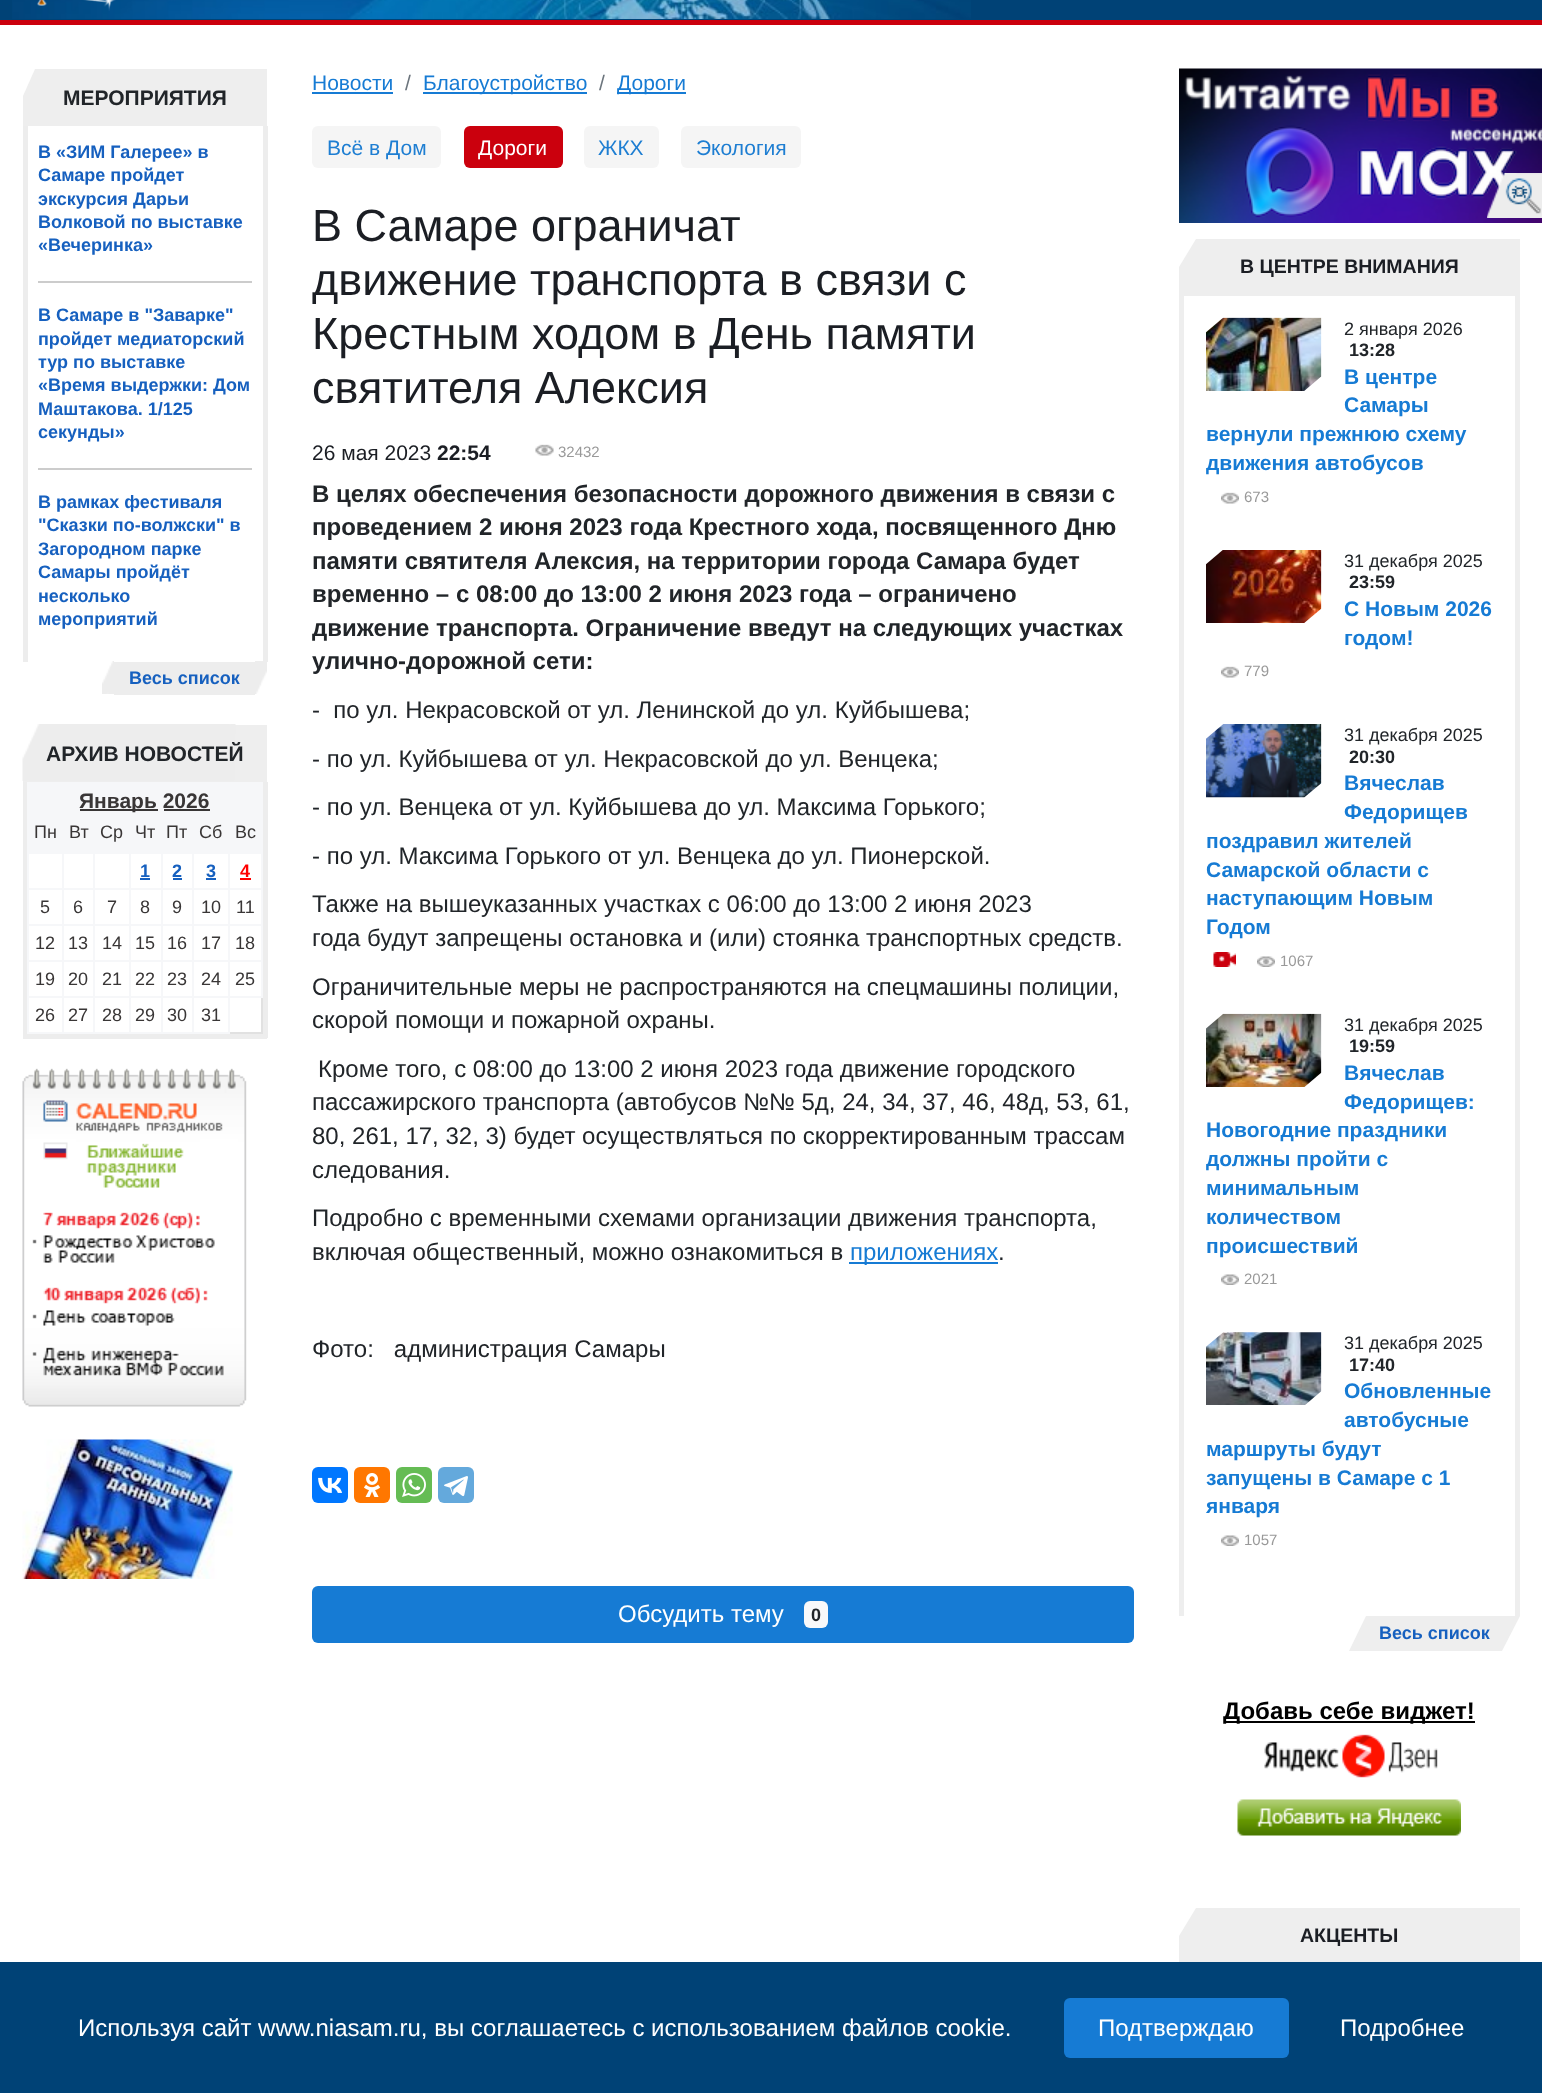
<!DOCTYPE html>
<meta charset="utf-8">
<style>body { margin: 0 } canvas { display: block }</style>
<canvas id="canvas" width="1542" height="2093"></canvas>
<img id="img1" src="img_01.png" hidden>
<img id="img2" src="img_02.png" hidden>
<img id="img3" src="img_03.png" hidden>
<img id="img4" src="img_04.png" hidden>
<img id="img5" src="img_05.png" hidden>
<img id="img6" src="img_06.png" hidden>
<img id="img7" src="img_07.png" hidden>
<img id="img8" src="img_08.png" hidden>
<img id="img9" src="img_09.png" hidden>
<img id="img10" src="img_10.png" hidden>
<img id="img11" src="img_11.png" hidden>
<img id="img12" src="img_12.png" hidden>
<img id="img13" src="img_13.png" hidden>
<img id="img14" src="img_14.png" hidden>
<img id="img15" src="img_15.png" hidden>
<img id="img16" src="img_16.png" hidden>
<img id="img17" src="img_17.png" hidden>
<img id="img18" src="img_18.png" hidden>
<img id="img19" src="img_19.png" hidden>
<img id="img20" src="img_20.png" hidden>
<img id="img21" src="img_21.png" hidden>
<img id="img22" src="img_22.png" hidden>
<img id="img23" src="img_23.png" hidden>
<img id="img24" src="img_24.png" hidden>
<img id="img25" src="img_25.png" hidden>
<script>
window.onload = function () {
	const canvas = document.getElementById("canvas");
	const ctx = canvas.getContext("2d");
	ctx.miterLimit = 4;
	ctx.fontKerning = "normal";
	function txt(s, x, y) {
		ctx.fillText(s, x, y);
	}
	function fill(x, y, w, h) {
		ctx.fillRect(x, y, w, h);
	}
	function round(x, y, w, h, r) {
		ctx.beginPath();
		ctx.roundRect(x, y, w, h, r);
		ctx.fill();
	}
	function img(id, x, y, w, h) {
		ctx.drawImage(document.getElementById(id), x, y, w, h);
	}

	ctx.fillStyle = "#FFFFFF";
	fill(0, 0, 1542, 2093);
	ctx.fillStyle = "#CB000D";
	fill(0, 20, 1542, 5);
	ctx.fillStyle = "#004276";
	fill(0, 0, 1542, 20);
	img("img1", 12, 0, 959, 19);
	img("img2", 37, 0, 79, 11);
	ctx.fillStyle = "#167BD4";
	fill(312, 92, 81, 2);
	fill(423, 92, 164, 2);
	fill(617, 92, 69, 2);
	ctx.fillStyle = "#F5F5F5";
	round(312, 126, 129, 42, 6);
	ctx.fillStyle = "#CB000D";
	round(464, 126, 99, 42, 6);
	ctx.fillStyle = "#F5F5F5";
	round(584, 126, 75, 42, 6);
	round(681, 126, 120, 42, 6);
	img("img3", 535, 444, 19, 12);
	ctx.fillStyle = "#167BD4";
	fill(849, 1262, 149, 2);
	ctx.fillStyle = "#0077FF";
	round(312, 1467, 36, 36, 6);
	img("img4", 318, 1477, 24, 16);
	ctx.fillStyle = "#FF7700";
	round(354, 1467, 36, 36, 6);
	img("img5", 364, 1473, 17, 24);
	ctx.fillStyle = "#65BC54";
	round(396, 1467, 36, 36, 6);
	img("img6", 402, 1473, 24, 24);
	ctx.fillStyle = "#64A9DC";
	round(438, 1467, 36, 36, 6);
	img("img7", 444, 1476, 24, 21);
	ctx.fillStyle = "#167BD4";
	round(312, 1586, 822, 57, 6);
	ctx.fillStyle = "#F8F9FA";
	round(804, 1601, 24, 27, 6);
	ctx.fillStyle = "#EEEEEE";
	ctx.beginPath();
	ctx.moveTo(1179, 1936);
	ctx.lineTo(1179, 1965);
	ctx.lineTo(1520, 1965);
	ctx.lineTo(1520, 1908);
	ctx.lineTo(1196, 1908);
	ctx.closePath();
	ctx.fill();
	ctx.fillStyle = "#004276";
	fill(0, 1962, 1542, 131);
	ctx.fillStyle = "#167BD4";
	round(1064, 1998, 225, 60, 6);
	ctx.fillStyle = "#EEEEEE";
	ctx.beginPath();
	ctx.moveTo(267, 69);
	ctx.lineTo(35, 69);
	ctx.lineTo(23, 96);
	ctx.lineTo(23, 126);
	ctx.lineTo(267, 126);
	ctx.closePath();
	ctx.fill();
	ctx.fillStyle = "#EDEDED";
	fill(263, 126, 5, 536);
	fill(23, 126, 5, 536);
	ctx.fillStyle = "#CCCCCC";
	fill(38, 281, 214, 2);
	fill(38, 468, 214, 2);
	img("img8", 102, 661, 12, 33);
	img("img9", 255, 661, 12, 33);
	ctx.fillStyle = "#EDEDED";
	fill(114, 662, 141, 33);
	ctx.fillStyle = "#EEEEEE";
	fill(23, 725, 244, 57);
	img("img10", 22, 724, 214, 57);
	ctx.fillStyle = "#EDEDED";
	fill(263, 782, 5, 256);
	fill(23, 1034, 244, 5);
	fill(23, 782, 5, 256);
	ctx.fillStyle = "#E1E1E1";
	fill(261, 998, 2, 36);
	fill(230, 1032, 33, 2);
	ctx.fillStyle = "#F6F7F9";
	fill(29, 784, 232, 70);
	fill(27, 782, 236, 2);
	fill(228, 888, 35, 2);
	fill(228, 924, 35, 2);
	fill(228, 960, 35, 2);
	fill(261, 960, 2, 38);
	fill(261, 924, 2, 38);
	fill(261, 888, 2, 38);
	fill(261, 852, 2, 38);
	fill(261, 818, 2, 36);
	fill(261, 782, 2, 37);
	fill(192, 996, 38, 2);
	fill(228, 996, 2, 38);
	fill(228, 996, 35, 2);
	fill(228, 960, 2, 38);
	fill(192, 960, 38, 2);
	fill(228, 924, 2, 38);
	fill(192, 924, 38, 2);
	fill(228, 888, 2, 38);
	fill(192, 888, 38, 2);
	fill(192, 1032, 38, 2);
	fill(192, 996, 2, 38);
	fill(161, 996, 33, 2);
	fill(192, 960, 2, 38);
	fill(161, 960, 33, 2);
	fill(192, 924, 2, 38);
	fill(161, 924, 33, 2);
	fill(192, 888, 2, 38);
	fill(161, 888, 33, 2);
	fill(161, 1032, 33, 2);
	fill(161, 996, 2, 38);
	fill(129, 996, 33, 2);
	fill(161, 960, 2, 38);
	fill(129, 960, 33, 2);
	fill(161, 924, 2, 38);
	fill(129, 924, 33, 2);
	fill(161, 888, 2, 38);
	fill(129, 888, 33, 2);
	fill(129, 1032, 33, 2);
	fill(129, 996, 2, 38);
	fill(93, 996, 38, 2);
	fill(129, 960, 2, 38);
	fill(93, 960, 38, 2);
	fill(129, 924, 2, 38);
	fill(93, 924, 38, 2);
	fill(129, 888, 2, 38);
	fill(93, 888, 38, 2);
	fill(93, 1032, 38, 2);
	fill(93, 996, 2, 38);
	fill(62, 996, 33, 2);
	fill(93, 960, 2, 38);
	fill(62, 960, 33, 2);
	fill(93, 924, 2, 38);
	fill(62, 924, 33, 2);
	fill(93, 888, 2, 38);
	fill(62, 888, 33, 2);
	fill(62, 1032, 33, 2);
	fill(62, 996, 2, 38);
	fill(27, 996, 36, 2);
	fill(62, 960, 2, 38);
	fill(27, 960, 36, 2);
	fill(62, 924, 2, 38);
	fill(27, 924, 36, 2);
	fill(62, 888, 2, 38);
	fill(27, 888, 36, 2);
	fill(27, 1032, 36, 2);
	fill(27, 996, 2, 38);
	fill(27, 960, 2, 38);
	fill(27, 924, 2, 38);
	fill(27, 888, 2, 38);
	fill(27, 852, 2, 38);
	fill(27, 818, 2, 36);
	fill(27, 782, 2, 37);
	ctx.fillStyle = "#393636";
	fill(80, 809, 78, 2);
	fill(164, 809, 46, 2);
	ctx.fillStyle = "#F6F7F9";
	fill(62, 852, 2, 38);
	fill(93, 852, 2, 38);
	fill(129, 852, 2, 38);
	ctx.fillStyle = "#1660BF";
	fill(140, 878, 10, 2);
	ctx.fillStyle = "#F6F7F9";
	fill(161, 852, 2, 38);
	ctx.fillStyle = "#1660BF";
	fill(173, 878, 9, 2);
	ctx.fillStyle = "#F6F7F9";
	fill(192, 852, 2, 38);
	ctx.fillStyle = "#1660BF";
	fill(206, 878, 10, 2);
	ctx.fillStyle = "#F6F7F9";
	fill(228, 852, 2, 38);
	ctx.fillStyle = "#FF0000";
	fill(240, 878, 11, 2);
	img("img11", 22, 1068, 225, 339);
	img("img12", 22, 1439, 211, 140);
	img("img13", 1179, 68, 363, 155);
	ctx.fillStyle = "#EEEEEE";
	ctx.beginPath();
	ctx.moveTo(1179, 267);
	ctx.lineTo(1179, 296);
	ctx.lineTo(1520, 296);
	ctx.lineTo(1520, 239);
	ctx.lineTo(1196, 239);
	ctx.closePath();
	ctx.fill();
	fill(1515, 296, 5, 1320);
	fill(1179, 296, 5, 1320);
	img("img14", 1206, 317, 116, 74);
	img("img15", 1221, 492, 18, 12);
	img("img16", 1206, 550, 116, 73);
	img("img15", 1221, 666, 18, 12);
	img("img17", 1206, 724, 116, 74);
	img("img18", 1213, 952, 23, 15);
	img("img19", 1257, 956, 18, 11);
	img("img20", 1206, 1013, 116, 74);
	img("img21", 1221, 1274, 18, 11);
	img("img22", 1206, 1332, 116, 73);
	img("img21", 1221, 1535, 18, 11);
	ctx.beginPath();
	ctx.moveTo(1366, 1616);
	ctx.lineTo(1520, 1616);
	ctx.lineTo(1502, 1651);
	ctx.lineTo(1349, 1651);
	ctx.closePath();
	ctx.fill();
	ctx.fillStyle = "#000000";
	fill(1224, 1721, 251, 2);
	img("img23", 1264, 1734, 174, 44);
	img("img24", 1237, 1799, 224, 37);
	img("img25", 1487, 173, 55, 45);
	ctx.font = "21px Liberation Sans";
	ctx.fillStyle = "#167BD4";
	txt("Новости", 312, 90);
	ctx.fillStyle = "#6C757D";
	txt("/", 405, 90);
	ctx.fillStyle = "#167BD4";
	txt("Благоустройство", 423, 90);
	ctx.fillStyle = "#6C757D";
	txt("/", 599, 90);
	ctx.fillStyle = "#167BD4";
	txt("Дороги", 617, 90);
	ctx.fillStyle = "#1E7ED2";
	txt("Всё в Дом", 327, 155);
	ctx.fillStyle = "#FFFFFF";
	txt("Дороги", 478, 155);
	ctx.fillStyle = "#1E7ED2";
	txt("ЖКХ", 598, 155);
	txt("Экология", 696, 155);
	ctx.font = "45px Liberation Sans";
	ctx.fillStyle = "#1B1E24";
	txt("В Самаре ограничат", 312, 241);
	txt("движение транспорта в связи с", 312, 295);
	txt("Крестным ходом в День памяти", 312, 349);
	txt("святителя Алексия", 312, 403);
	ctx.font = "21px Liberation Sans";
	txt("26 мая 2023", 312, 460);
	ctx.font = "bold 21px Liberation Sans";
	txt("22:54", 437, 460);
	ctx.font = "15px Liberation Sans";
	ctx.fillStyle = "#999999";
	txt("32432", 558, 457);
	ctx.font = "bold 24px Liberation Sans";
	ctx.fillStyle = "#212529";
	txt("В целях обеспечения безопасности дорожного движения в связи с", 312, 502);
	txt("проведением 2 июня 2023 года Крестного хода, посвященного Дню", 312, 535);
	txt("памяти святителя Алексия, на территории города Самара будет", 312, 569);
	txt("временно – с 08:00 до 13:00 2 июня 2023 года – ограничено", 312, 602);
	txt("движение транспорта. Ограничение введут на следующих участках", 312, 636);
	txt("улично-дорожной сети:", 312, 669);
	ctx.font = "24px Liberation Sans";
	txt("-  по ул. Некрасовской от ул. Ленинской до ул. Куйбышева;", 312, 718);
	txt("- по ул. Куйбышева от ул. Некрасовской до ул. Венцека;", 312, 767);
	txt("- по ул. Венцека от ул. Куйбышева до ул. Максима Горького;", 312, 815);
	txt("- по ул. Максима Горького от ул. Венцека до ул. Пионерской.", 312, 864);
	txt("Также на вышеуказанных участках с 06:00 до 13:00 2 июня 2023", 312, 912);
	txt("года будут запрещены остановка и (или) стоянка транспортных средств.", 312, 946);
	txt("Ограничительные меры не распространяются на спецмашины полиции,", 312, 995);
	txt("скорой помощи и пожарной охраны.", 312, 1028);
	txt("Кроме того, с 08:00 до 13:00 2 июня 2023 года движение городского", 318, 1077);
	txt("пассажирского транспорта (автобусов №№ 5д, 24, 34, 37, 46, 48д, 53, 61,", 312, 1110);
	txt("80, 261, 17, 32, 3) будет осуществляться по скорректированным трассам", 312, 1144);
	txt("следования.", 312, 1178);
	txt("Подробно с временными схемами организации движения транспорта,", 312, 1226);
	txt("включая общественный, можно ознакомиться в", 312, 1260);
	ctx.fillStyle = "#167BD4";
	txt("приложениях", 850, 1260);
	ctx.fillStyle = "#212529";
	txt(".", 998, 1260);
	txt("Фото:   администрация Самары", 312, 1357);
	ctx.fillStyle = "#FFFFFF";
	txt("Обсудить тему", 618, 1622);
	ctx.font = "bold 18px Liberation Sans";
	ctx.fillStyle = "#212529";
	txt("0", 811, 1621);
	ctx.font = "24px Liberation Sans";
	ctx.fillStyle = "#FFFFFF";
	txt("Используя сайт www.niasam.ru, вы соглашаетесь с использованием файлов cookie.", 78, 2036);
	txt("Подтверждаю", 1098, 2036);
	txt("Подробнее", 1340, 2036);
	ctx.font = "bold 21px Liberation Sans";
	ctx.fillStyle = "#212529";
	txt("МЕРОПРИЯТИЯ", 63, 105);
	ctx.font = "bold 18px Liberation Sans";
	ctx.fillStyle = "#1660BF";
	txt("В «ЗИМ Галерее» в", 38, 158);
	txt("Самаре пройдет", 38, 181);
	txt("экскурсия Дарьи", 38, 205);
	txt("Волковой по выставке", 38, 228);
	txt("«Вечеринка»", 38, 251);
	txt("В Самаре в \"Заварке\"", 38, 321);
	txt("пройдет медиаторский", 38, 345);
	txt("тур по выставке", 38, 368);
	txt("«Время выдержки: Дом", 38, 391);
	txt("Маштакова. 1/125", 38, 415);
	txt("секунды»", 38, 438);
	txt("В рамках фестиваля", 38, 508);
	txt("\"Сказки по-волжски\" в", 38, 531);
	txt("Загородном парке", 38, 555);
	txt("Самары пройдёт", 38, 578);
	txt("несколько", 38, 602);
	txt("мероприятий", 38, 625);
	txt("Весь список", 129, 684);
	ctx.font = "bold 21px Liberation Sans";
	ctx.fillStyle = "#212529";
	txt("АРХИВ НОВОСТЕЙ", 46, 761);
	ctx.fillStyle = "#393636";
	txt("Январь 2026", 79, 808);
	ctx.font = "18px Liberation Sans";
	txt("Пн", 34, 838);
	txt("Вт", 69, 838);
	txt("Ср", 100, 838);
	txt("Чт", 135, 838);
	txt("Пт", 166, 838);
	txt("Сб", 199, 838);
	txt("Вс", 235, 838);
	ctx.font = "bold 18px Liberation Sans";
	ctx.fillStyle = "#1660BF";
	txt("1", 140, 877);
	txt("2", 172, 877);
	txt("3", 206, 877);
	ctx.fillStyle = "#FF0000";
	txt("4", 240, 877);
	ctx.font = "18px Liberation Sans";
	ctx.fillStyle = "#393636";
	txt("5", 40, 913);
	txt("6", 73, 913);
	txt("7", 107, 913);
	txt("8", 140, 913);
	txt("9", 172, 913);
	txt("10", 201, 913);
	txt("11", 236, 913);
	txt("12", 35, 949);
	txt("13", 68, 949);
	txt("14", 102, 949);
	txt("15", 135, 949);
	txt("16", 167, 949);
	txt("17", 201, 949);
	txt("18", 235, 949);
	txt("19", 35, 985);
	txt("20", 68, 985);
	txt("21", 102, 985);
	txt("22", 135, 985);
	txt("23", 167, 985);
	txt("24", 201, 985);
	txt("25", 235, 985);
	txt("26", 35, 1021);
	txt("27", 68, 1021);
	txt("28", 102, 1021);
	txt("29", 135, 1021);
	txt("30", 167, 1021);
	txt("31", 201, 1021);
	ctx.font = "bold 19.5px Liberation Sans";
	ctx.fillStyle = "#1B1E24";
	txt("В ЦЕНТРЕ ВНИМАНИЯ", 1240, 273);
	ctx.font = "18px Liberation Sans";
	ctx.fillStyle = "#212529";
	txt("2 января 2026", 1344, 335);
	ctx.font = "bold 18px Liberation Sans";
	txt("13:28", 1349, 356);
	ctx.font = "bold 21px Liberation Sans";
	ctx.fillStyle = "#167BD4";
	txt("В центре", 1344, 384);
	txt("Самары", 1344, 412);
	txt("вернули прежнюю схему", 1206, 441);
	txt("движения автобусов", 1206, 470);
	ctx.font = "15px Liberation Sans";
	ctx.fillStyle = "#999999";
	txt("673", 1244, 502);
	ctx.font = "18px Liberation Sans";
	ctx.fillStyle = "#212529";
	txt("31 декабря 2025", 1344, 567);
	ctx.font = "bold 18px Liberation Sans";
	txt("23:59", 1349, 588);
	ctx.font = "bold 21px Liberation Sans";
	ctx.fillStyle = "#167BD4";
	txt("С Новым 2026", 1344, 616);
	txt("годом!", 1344, 645);
	ctx.font = "15px Liberation Sans";
	ctx.fillStyle = "#999999";
	txt("779", 1244, 676);
	ctx.font = "18px Liberation Sans";
	ctx.fillStyle = "#212529";
	txt("31 декабря 2025", 1344, 741);
	ctx.font = "bold 18px Liberation Sans";
	txt("20:30", 1349, 763);
	ctx.font = "bold 21px Liberation Sans";
	ctx.fillStyle = "#167BD4";
	txt("Вячеслав", 1344, 790);
	txt("Федорищев", 1344, 819);
	txt("поздравил жителей", 1206, 848);
	txt("Самарской области с", 1206, 877);
	txt("наступающим Новым", 1206, 905);
	txt("Годом", 1206, 934);
	ctx.font = "15px Liberation Sans";
	ctx.fillStyle = "#999999";
	txt("1067", 1280, 966);
	ctx.font = "18px Liberation Sans";
	ctx.fillStyle = "#212529";
	txt("31 декабря 2025", 1344, 1031);
	ctx.font = "bold 18px Liberation Sans";
	txt("19:59", 1349, 1052);
	ctx.font = "bold 21px Liberation Sans";
	ctx.fillStyle = "#167BD4";
	txt("Вячеслав", 1344, 1080);
	txt("Федорищев:", 1344, 1109);
	txt("Новогодние праздники", 1206, 1137);
	txt("должны пройти с", 1206, 1166);
	txt("минимальным", 1206, 1195);
	txt("количеством", 1206, 1224);
	txt("происшествий", 1206, 1253);
	ctx.font = "15px Liberation Sans";
	ctx.fillStyle = "#999999";
	txt("2021", 1244, 1284);
	ctx.font = "18px Liberation Sans";
	ctx.fillStyle = "#212529";
	txt("31 декабря 2025", 1344, 1349);
	ctx.font = "bold 18px Liberation Sans";
	txt("17:40", 1349, 1371);
	ctx.font = "bold 21px Liberation Sans";
	ctx.fillStyle = "#167BD4";
	txt("Обновленные", 1344, 1398);
	txt("автобусные", 1344, 1427);
	txt("маршруты будут", 1206, 1456);
	txt("запущены в Самаре с 1", 1206, 1485);
	txt("января", 1206, 1513);
	ctx.font = "15px Liberation Sans";
	ctx.fillStyle = "#999999";
	txt("1057", 1244, 1545);
	ctx.font = "bold 18px Liberation Sans";
	ctx.fillStyle = "#1660BF";
	txt("Весь список", 1379, 1639);
	ctx.font = "bold 24px Liberation Sans";
	ctx.fillStyle = "#000000";
	txt("Добавь себе виджет!", 1223, 1719);
	ctx.font = "bold 19.5px Liberation Sans";
	ctx.fillStyle = "#1B1E24";
	txt("АКЦЕНТЫ", 1300, 1942);
};
</script>
